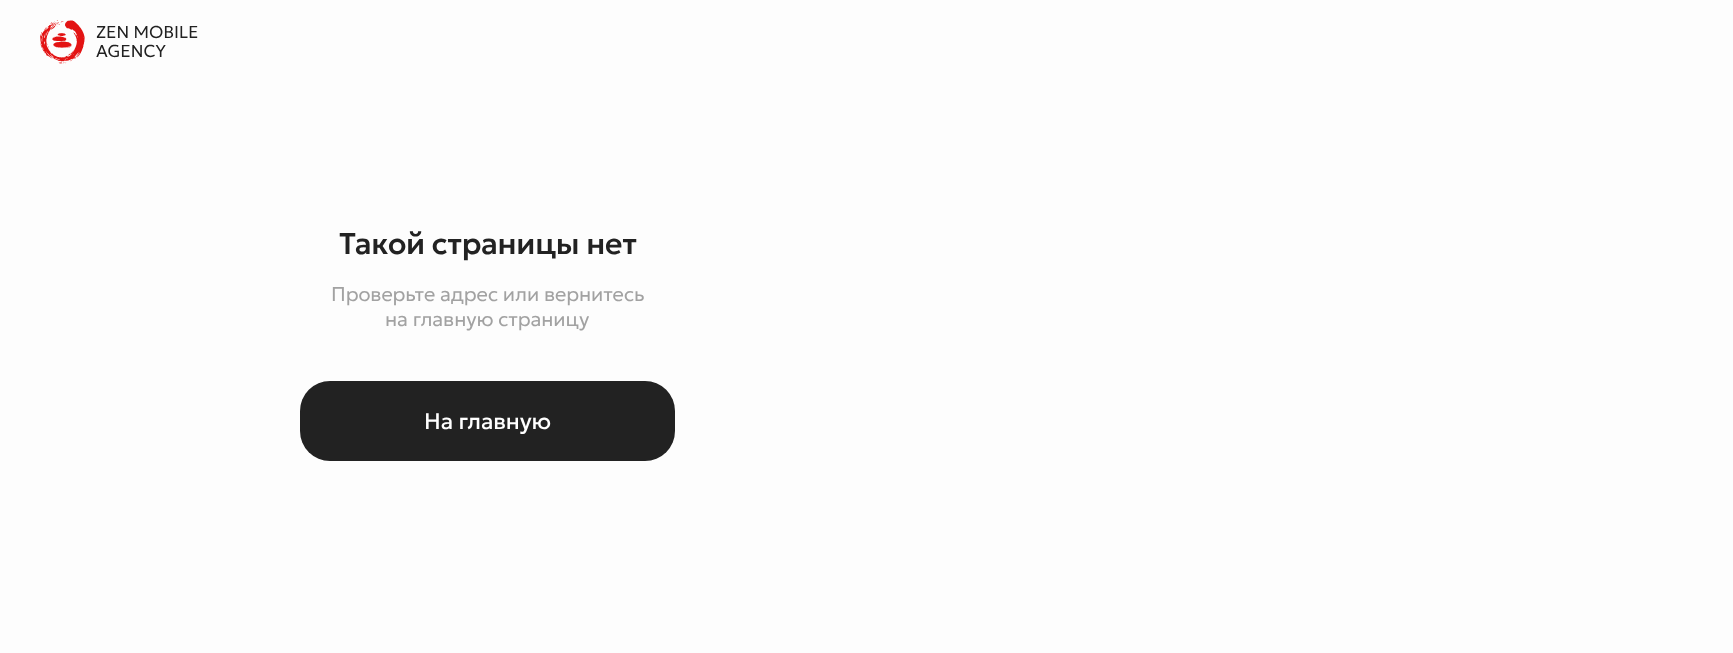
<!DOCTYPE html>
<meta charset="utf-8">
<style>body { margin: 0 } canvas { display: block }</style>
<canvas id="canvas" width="1733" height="653"></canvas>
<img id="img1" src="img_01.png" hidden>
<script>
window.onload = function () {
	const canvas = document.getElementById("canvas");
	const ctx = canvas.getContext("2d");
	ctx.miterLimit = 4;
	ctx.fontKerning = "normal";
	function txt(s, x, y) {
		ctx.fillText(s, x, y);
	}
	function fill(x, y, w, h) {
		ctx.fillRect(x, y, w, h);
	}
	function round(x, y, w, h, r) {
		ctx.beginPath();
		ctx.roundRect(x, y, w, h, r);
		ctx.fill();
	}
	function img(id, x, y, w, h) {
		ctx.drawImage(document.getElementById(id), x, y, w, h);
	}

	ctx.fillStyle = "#FDFDFD";
	fill(0, 0, 1733, 653);
	img("img1", 40, 20, 158, 44);
	ctx.fillStyle = "#222222";
	round(300, 381, 375, 80, 30);
	ctx.letterSpacing = "-0.25px";
	ctx.font = "500 30px Geologica";
	txt("Такой страницы нет", 339, 254);
	ctx.letterSpacing = "-0.1px";
	ctx.font = "300 20px Geologica";
	ctx.fillStyle = "#A2A2A2";
	txt("Проверьте адрес или вернитесь", 331, 301);
	txt("на главную страницу", 385, 326);
	ctx.font = "22.5px Geologica";
	ctx.fillStyle = "#FFFFFF";
	txt("На главную", 424, 429);
};
</script>
